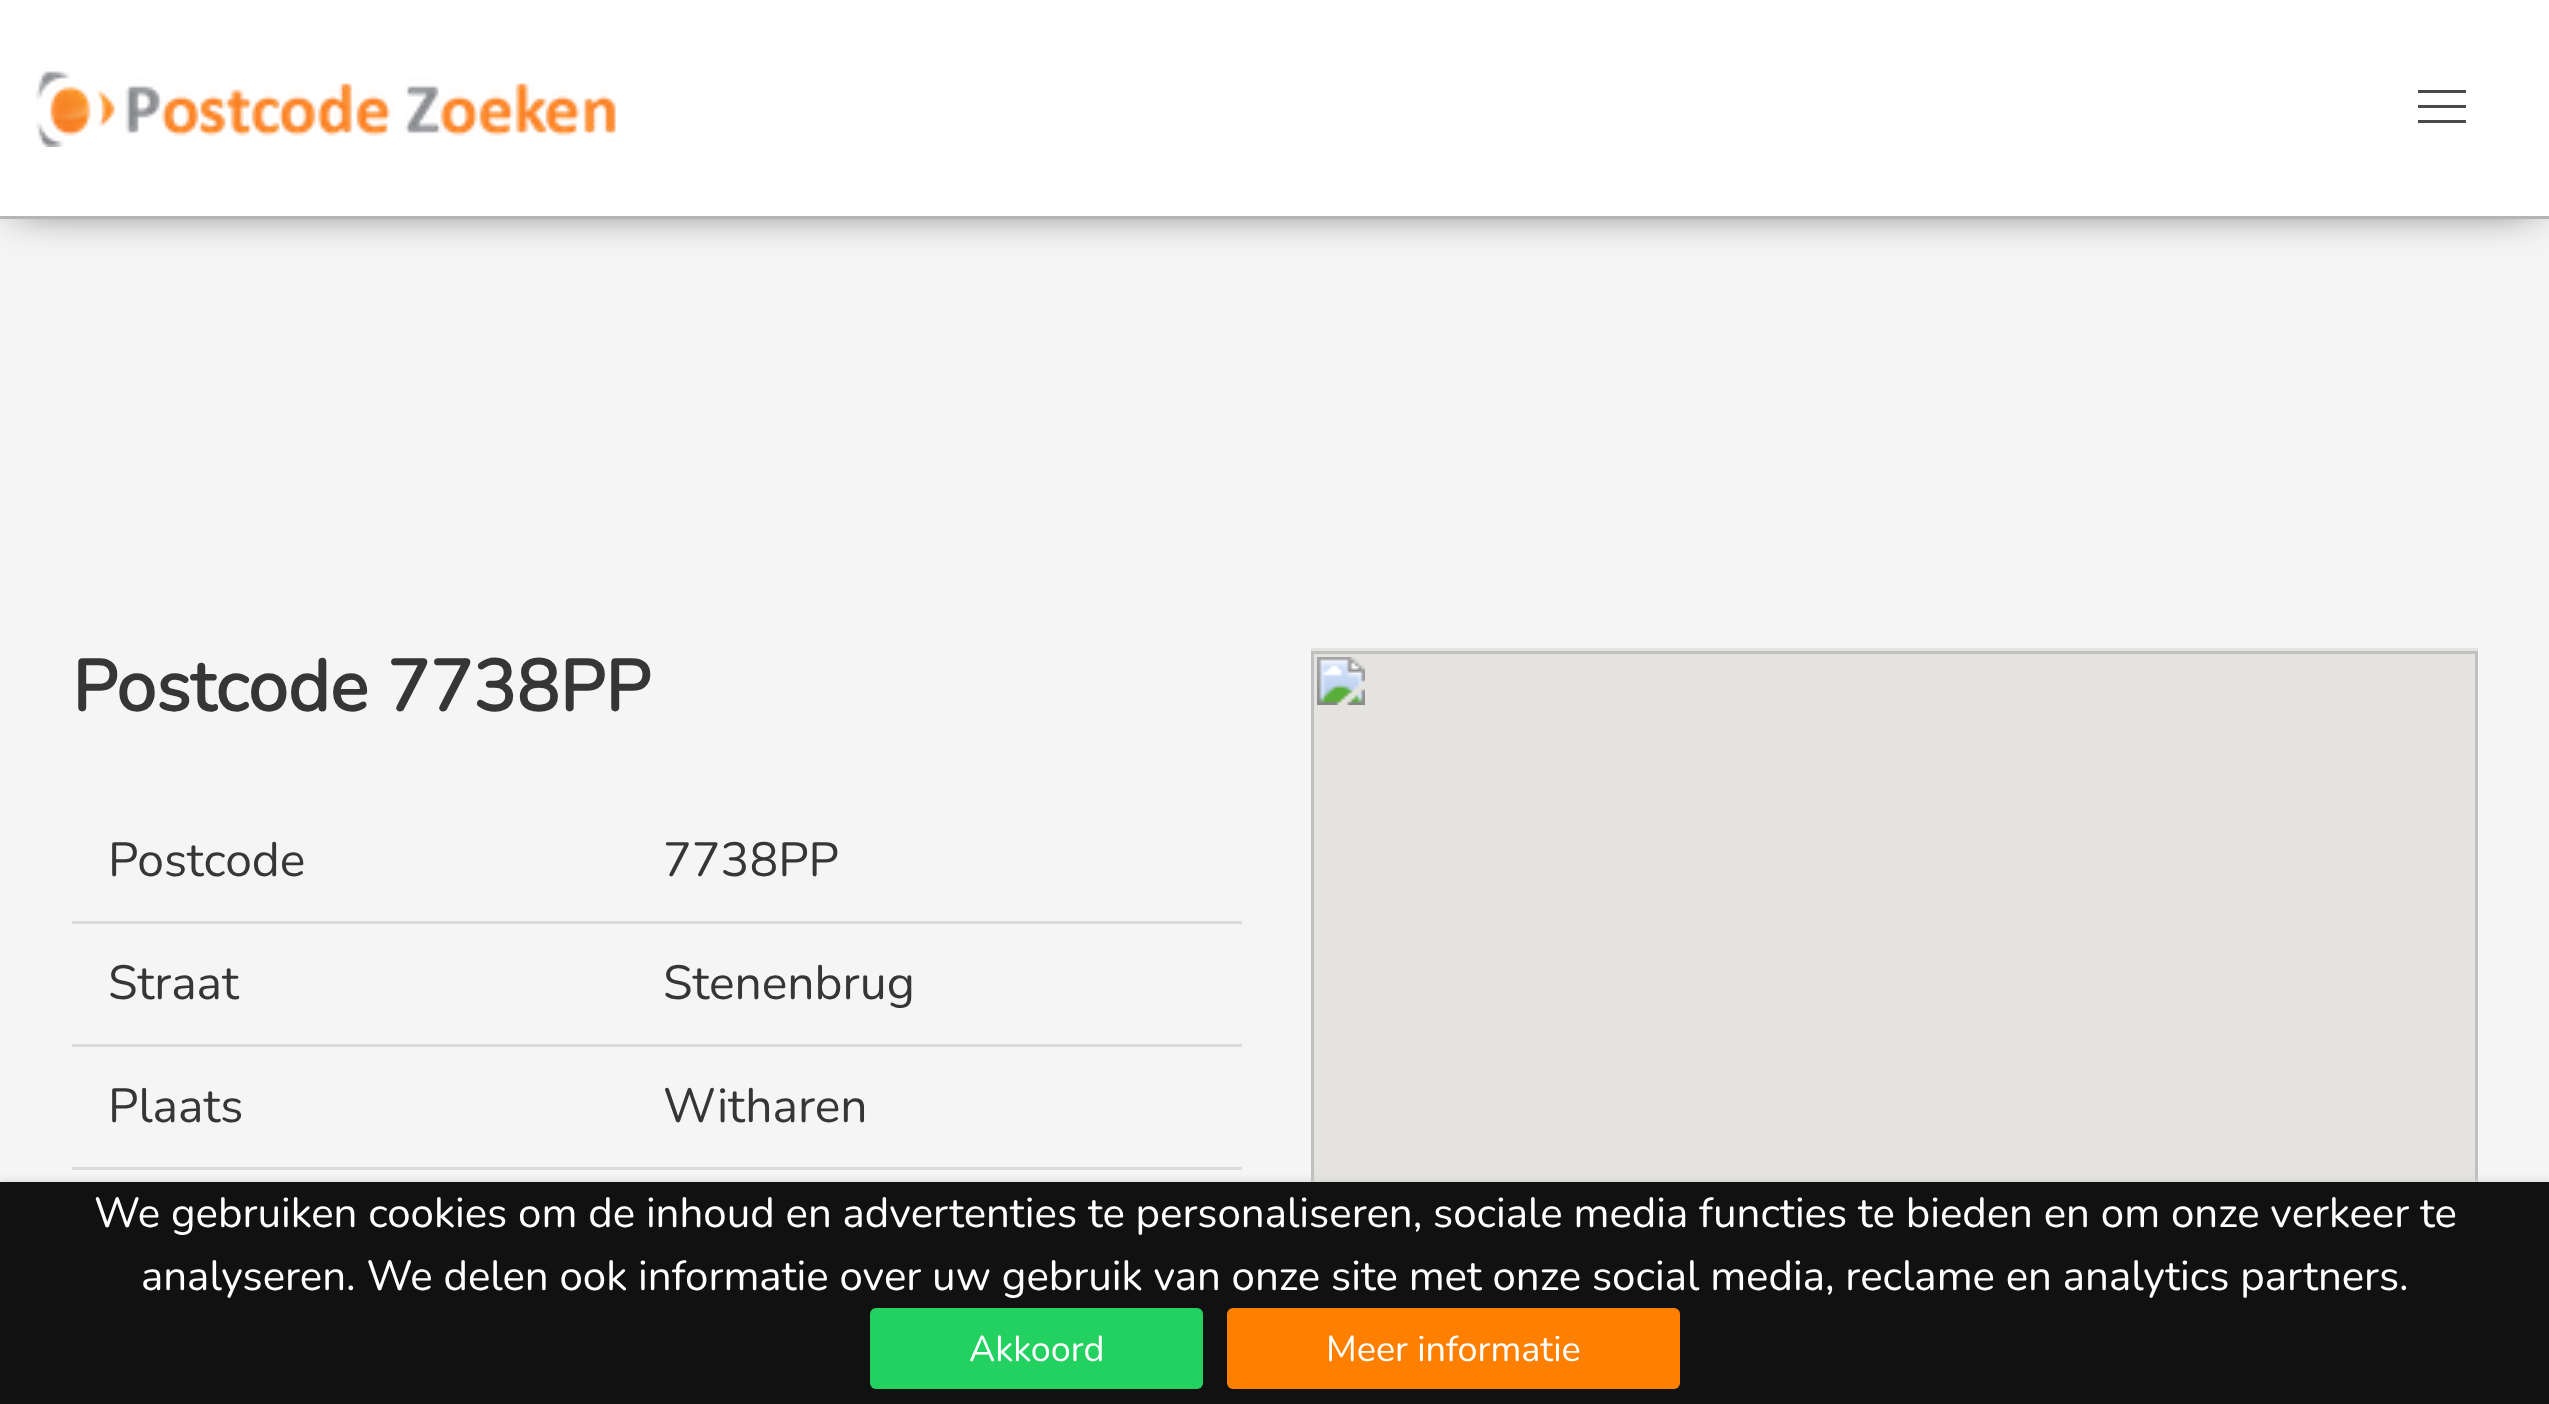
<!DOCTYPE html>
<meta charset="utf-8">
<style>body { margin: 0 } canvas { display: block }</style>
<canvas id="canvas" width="2549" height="1404"></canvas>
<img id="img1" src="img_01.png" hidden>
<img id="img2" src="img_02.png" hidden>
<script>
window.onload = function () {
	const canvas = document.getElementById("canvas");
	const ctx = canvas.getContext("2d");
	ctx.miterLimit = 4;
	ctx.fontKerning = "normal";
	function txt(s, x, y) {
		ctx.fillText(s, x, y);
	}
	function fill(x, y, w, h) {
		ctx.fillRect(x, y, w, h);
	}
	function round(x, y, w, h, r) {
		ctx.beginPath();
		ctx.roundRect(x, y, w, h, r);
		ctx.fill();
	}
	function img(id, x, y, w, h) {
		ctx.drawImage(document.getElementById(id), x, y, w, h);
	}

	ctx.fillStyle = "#F5F5F5";
	fill(0, 0, 2549, 1404);
	ctx.fillStyle = "#333333";
	ctx.filter = "blur(22.5px)";
	ctx.beginPath();
	ctx.rect(15, 15, 2520, 189);
	ctx.fill();
	ctx.filter = "none";
	ctx.fillStyle = "#FFFFFF";
	fill(0, 0, 2549, 216);
	ctx.fillStyle = "#B5B5B5";
	fill(0, 216, 2549, 3);
	img("img1", 36, 71, 580, 76);
	ctx.fillStyle = "#4A4A4A";
	fill(2418, 90, 48, 3);
	fill(2418, 105, 48, 3);
	fill(2418, 120, 48, 3);
	ctx.fillStyle = "#DBDBDB";
	fill(72, 921, 1170, 3);
	fill(72, 1044, 1170, 3);
	fill(72, 1167, 1170, 3);
	img("img2", 1311, 648, 1167, 534);
	ctx.fillStyle = "#CCCCCC";
	ctx.filter = "blur(4.5px)";
	ctx.beginPath();
	ctx.rect(0, 1182, 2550, 222);
	ctx.fill();
	ctx.filter = "none";
	ctx.fillStyle = "#111111";
	fill(0, 1182, 2549, 222);
	ctx.fillStyle = "#23D160";
	round(870, 1308, 333, 81, 6);
	ctx.fillStyle = "#FF8000";
	round(1227, 1308, 453, 81, 6);
	ctx.font = "bold 72px Nunito";
	ctx.fillStyle = "#363636";
	txt("Postcode 7738PP", 72, 711);
	ctx.font = "200 48px Nunito";
	txt("Postcode", 108, 876);
	txt("7738PP", 663, 876);
	txt("Straat", 108, 999);
	txt("Stenenbrug", 663, 999);
	txt("Plaats", 108, 1122);
	txt("Witharen", 663, 1122);
	ctx.font = "200 42px Nunito";
	ctx.fillStyle = "#FFFFFF";
	txt("We gebruiken cookies om de inhoud en advertenties te personaliseren, sociale media functies te bieden en om onze verkeer te", 94, 1227);
	txt("analyseren. We delen ook informatie over uw gebruik van onze site met onze social media, reclame en analytics partners.", 141, 1290);
	ctx.font = "200 36px Nunito";
	txt("Akkoord", 969, 1361);
	txt("Meer informatie", 1326, 1361);
};
</script>
